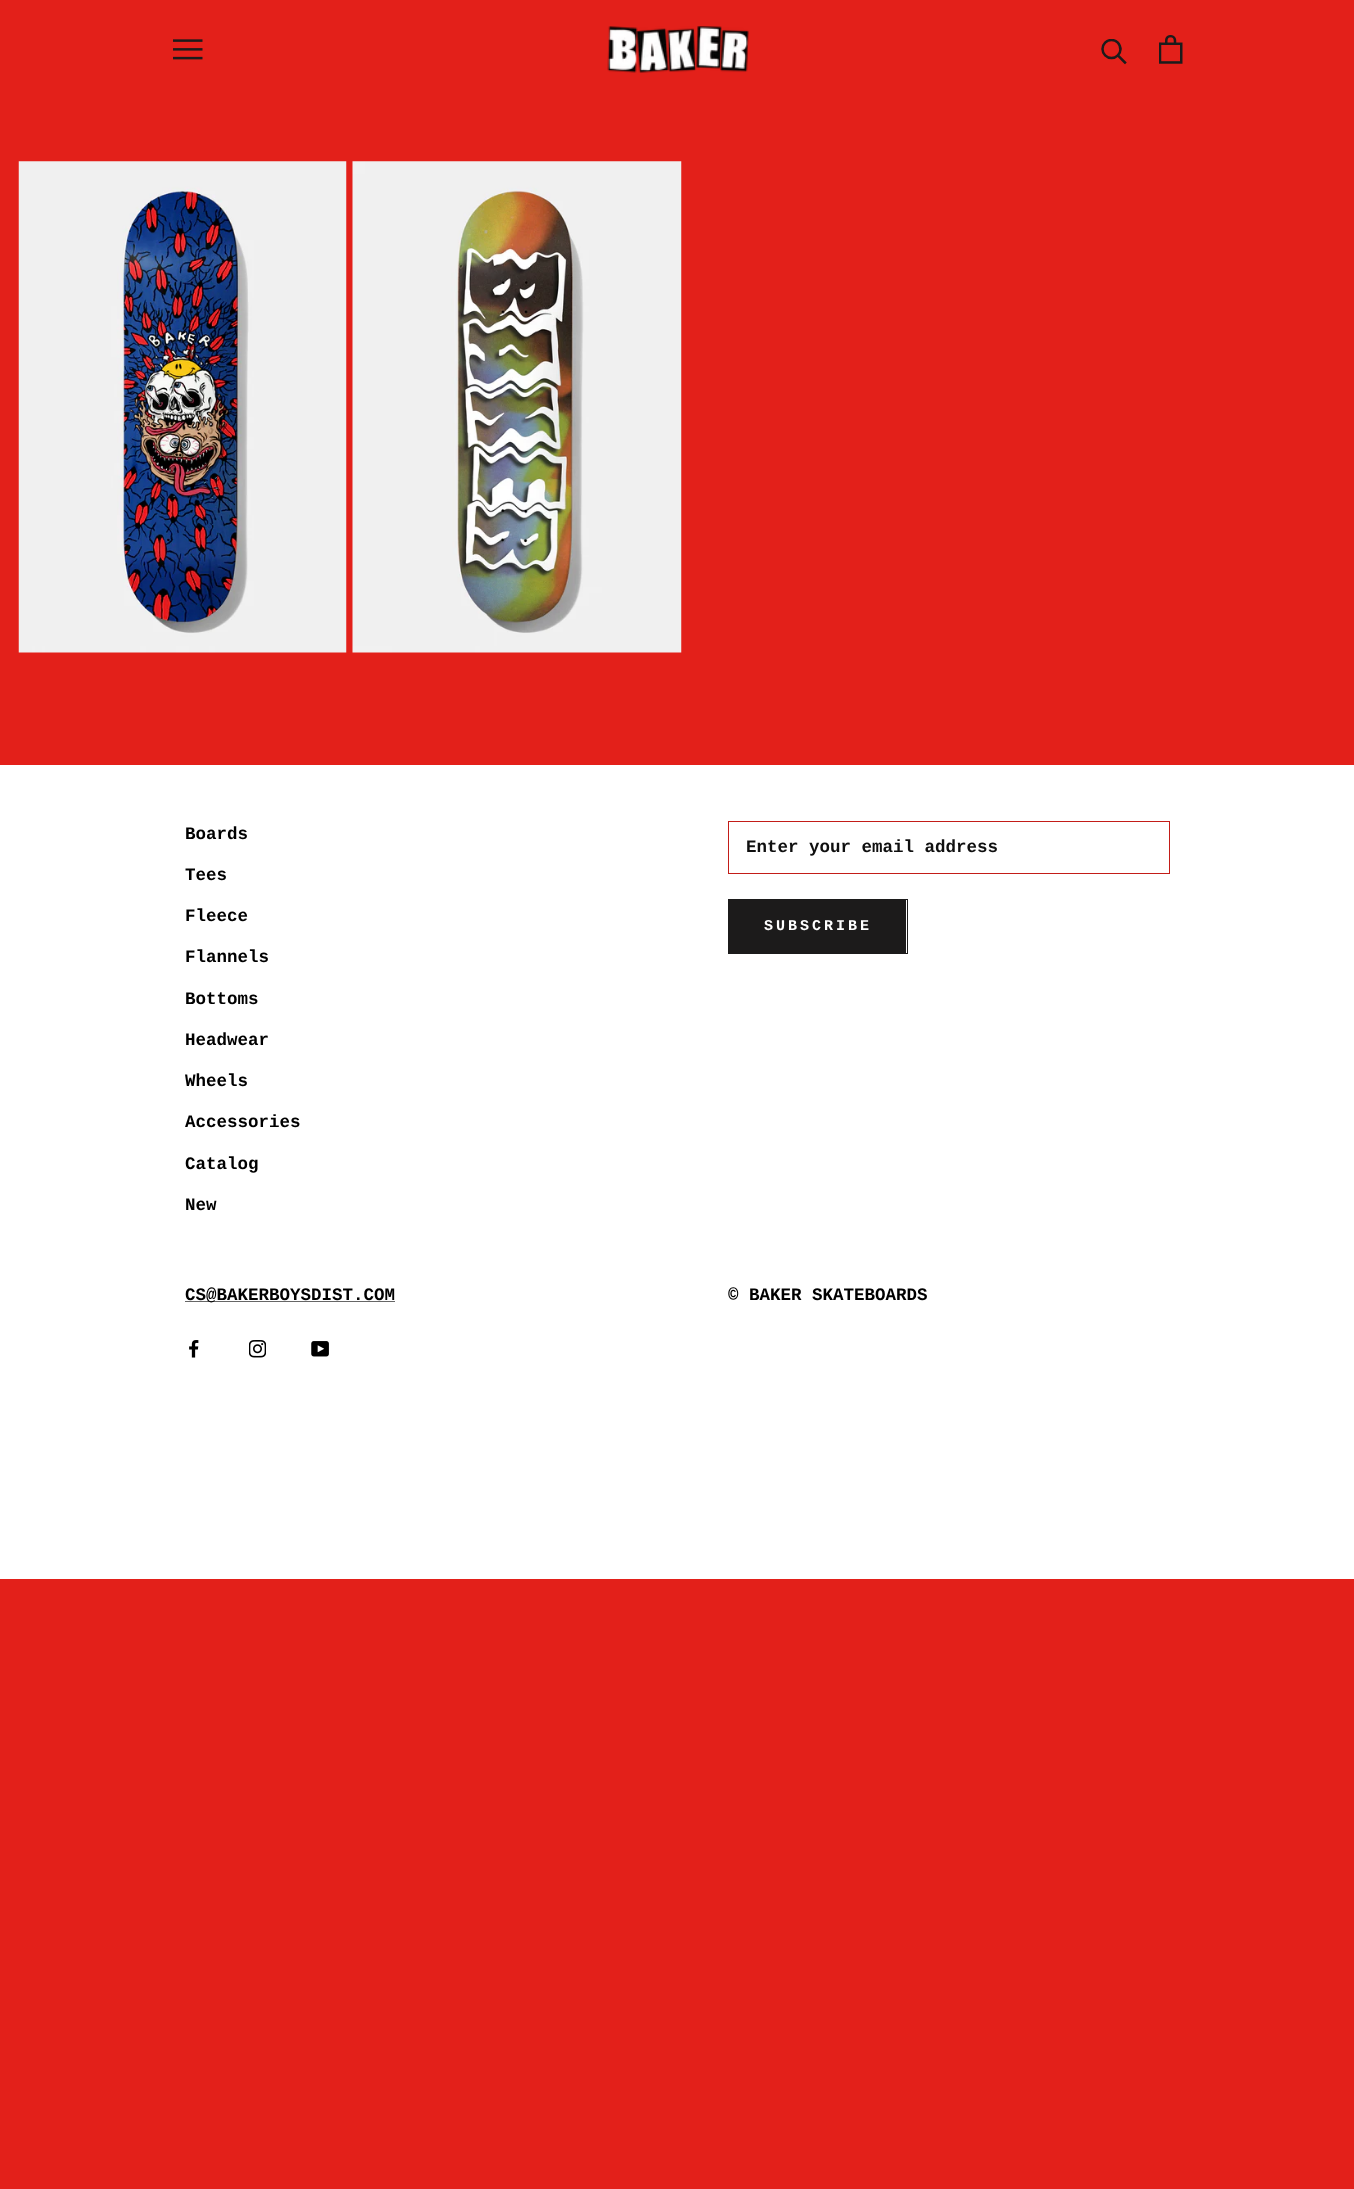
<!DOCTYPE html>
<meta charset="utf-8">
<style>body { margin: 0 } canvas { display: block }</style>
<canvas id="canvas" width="1354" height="2189"></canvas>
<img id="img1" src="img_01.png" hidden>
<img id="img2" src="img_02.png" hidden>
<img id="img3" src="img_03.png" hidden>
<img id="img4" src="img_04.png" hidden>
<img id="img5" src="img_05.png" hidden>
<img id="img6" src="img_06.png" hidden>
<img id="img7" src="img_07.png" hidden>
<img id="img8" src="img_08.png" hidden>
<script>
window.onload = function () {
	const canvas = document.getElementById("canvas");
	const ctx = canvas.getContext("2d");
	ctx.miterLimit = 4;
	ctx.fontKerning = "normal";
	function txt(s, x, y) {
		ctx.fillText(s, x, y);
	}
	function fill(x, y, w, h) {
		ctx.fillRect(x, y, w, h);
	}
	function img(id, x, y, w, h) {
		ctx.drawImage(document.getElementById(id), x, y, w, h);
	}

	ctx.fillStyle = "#E3201A";
	fill(0, 0, 1354, 2189);
	img("img1", 173, 39, 30, 21);
	img("img2", 607, 26, 142, 47);
	ctx.beginPath();
	ctx.moveTo(1125, 62.5);
	ctx.lineTo(1118, 55.5);
	ctx.strokeStyle = "#1C1B1B";
	ctx.lineWidth = 2.5;
	ctx.lineCap = "square";
	ctx.stroke();
	ctx.save();
	ctx.beginPath();
	ctx.rect(1101, 39, 27, 26);
	ctx.clip();
	ctx.beginPath();
	ctx.arc(1111.5, 49, 9, 0, Math.PI * 2);
	ctx.stroke();
	ctx.restore();
	img("img3", 1159, 35, 24, 29);
	img("img4", 18, 161, 329, 492);
	img("img5", 352, 161, 330, 492);
	ctx.fillStyle = "#FFFFFF";
	fill(0, 765, 1354, 814);
	ctx.strokeStyle = "#C31D18";
	ctx.lineWidth = 1;
	ctx.strokeRect(728.5, 821.5, 441, 52);
	ctx.strokeStyle = "#1C1B1B";
	ctx.strokeRect(728.5, 899.5, 179, 54);
	ctx.fillStyle = "#1C1B1B";
	fill(729, 900, 177, 53);
	ctx.fillStyle = "#666666";
	fill(185, 1301, 210, 1);
	img("img6", 189, 1340, 10, 18);
	img("img7", 249, 1340, 17, 18);
	img("img8", 311, 1341, 18, 16);
	ctx.font = "bold 17.5px Liberation Mono";
	ctx.fillStyle = "#000000";
	txt("Boards", 185, 839);
	txt("Tees", 185, 880);
	txt("Fleece", 185, 921);
	txt("Flannels", 185, 962);
	txt("Bottoms", 185, 1004);
	txt("Headwear", 185, 1045);
	txt("Wheels", 185, 1086);
	txt("Accessories", 185, 1127);
	txt("Catalog", 185, 1169);
	txt("New", 185, 1210);
	ctx.fillStyle = "#0F0F0F";
	txt("Enter your email address", 746, 852);
	ctx.letterSpacing = "3px";
	ctx.font = "bold 15px Liberation Mono";
	ctx.fillStyle = "#FFFFFF";
	txt("SUBSCRIBE", 764, 930);
	ctx.letterSpacing = "0px";
	ctx.font = "bold 17.5px Liberation Mono";
	ctx.fillStyle = "#000000";
	txt("CS@BAKERBOYSDIST.COM", 185, 1300);
	txt("© BAKER SKATEBOARDS", 728, 1300);
};
</script>
